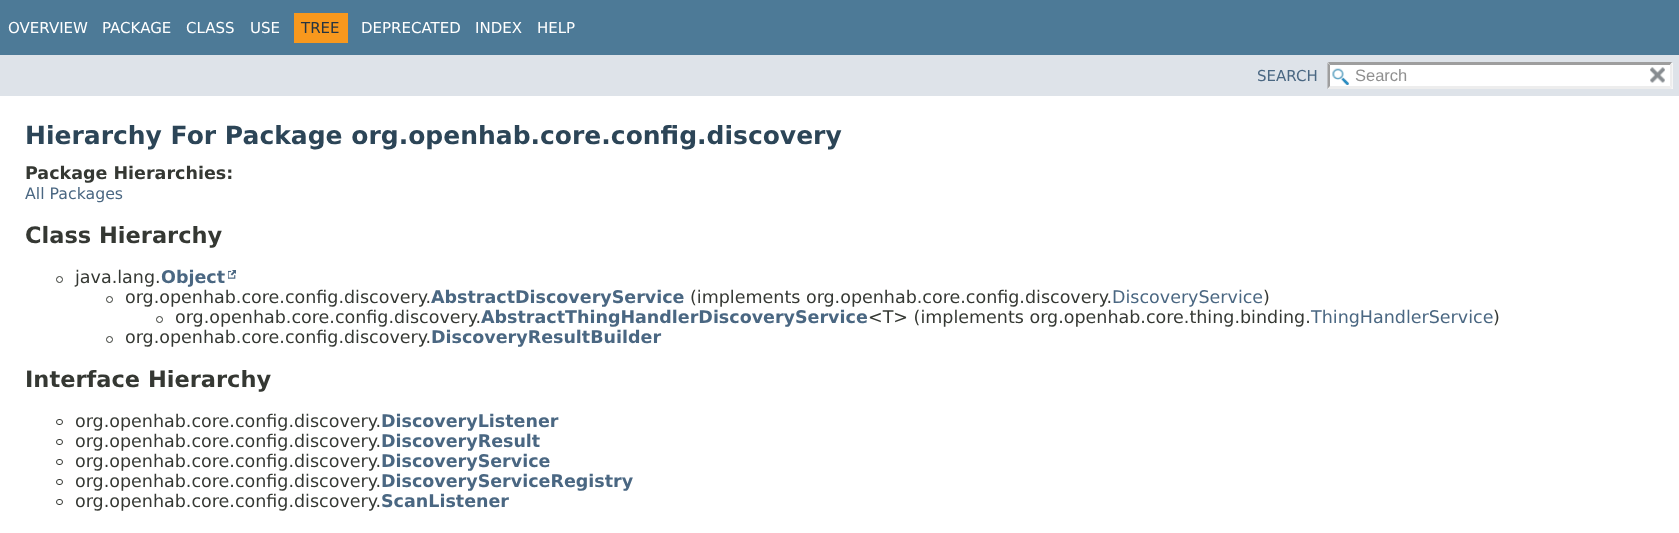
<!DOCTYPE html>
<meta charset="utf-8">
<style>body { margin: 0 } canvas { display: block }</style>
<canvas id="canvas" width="1679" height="533"></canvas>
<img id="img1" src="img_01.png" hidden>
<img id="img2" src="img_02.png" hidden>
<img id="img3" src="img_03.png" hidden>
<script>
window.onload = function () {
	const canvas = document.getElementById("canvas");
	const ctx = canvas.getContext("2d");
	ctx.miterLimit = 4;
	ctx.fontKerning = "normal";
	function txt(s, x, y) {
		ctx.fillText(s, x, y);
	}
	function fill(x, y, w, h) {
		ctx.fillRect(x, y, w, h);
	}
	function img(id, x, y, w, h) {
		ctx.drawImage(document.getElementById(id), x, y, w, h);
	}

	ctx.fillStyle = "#FFFFFF";
	fill(0, 0, 1679, 533);
	ctx.fillStyle = "#4D7A97";
	fill(0, 0, 1679, 55);
	ctx.fillStyle = "#F8981D";
	fill(294, 13, 54, 30);
	ctx.fillStyle = "#DEE3E9";
	fill(0, 55, 1679, 41);
	ctx.fillStyle = "#FFFFFF";
	fill(1328, 63, 345, 26);
	img("img1", 1332, 68, 17, 17);
	ctx.fillStyle = "#9E9E9E";
	ctx.beginPath();
	ctx.moveTo(1328, 62);
	ctx.lineTo(1672, 62);
	ctx.lineTo(1670, 65);
	ctx.lineTo(1330, 65);
	ctx.closePath();
	ctx.fill();
	ctx.fillStyle = "#EDEDED";
	ctx.beginPath();
	ctx.moveTo(1672.5, 62.5);
	ctx.lineTo(1672.5, 89);
	ctx.lineTo(1670, 86);
	ctx.lineTo(1670, 65);
	ctx.closePath();
	ctx.fill();
	ctx.beginPath();
	ctx.moveTo(1672, 89);
	ctx.lineTo(1328, 89);
	ctx.lineTo(1330, 86);
	ctx.lineTo(1670, 86);
	ctx.closePath();
	ctx.fill();
	ctx.fillStyle = "#9E9E9E";
	ctx.beginPath();
	ctx.moveTo(1327.5, 89);
	ctx.lineTo(1327.5, 62.5);
	ctx.lineTo(1330, 65);
	ctx.lineTo(1330, 86);
	ctx.closePath();
	ctx.fill();
	img("img2", 1650, 67, 15, 16);
	ctx.beginPath();
	ctx.arc(59.5, 279.5, 3, 0, Math.PI * 2);
	ctx.strokeStyle = "#353833";
	ctx.stroke();
	img("img3", 228, 270, 8, 9);
	ctx.beginPath();
	ctx.arc(109.5, 299.5, 3, 0, Math.PI * 2);
	ctx.stroke();
	ctx.beginPath();
	ctx.arc(159.5, 319.5, 3, 0, Math.PI * 2);
	ctx.stroke();
	ctx.beginPath();
	ctx.arc(109.5, 339.5, 3, 0, Math.PI * 2);
	ctx.stroke();
	ctx.beginPath();
	ctx.roundRect(56.5, 419.5, 6, 5, 2.5);
	ctx.stroke();
	ctx.beginPath();
	ctx.roundRect(56.5, 439.5, 6, 5, 2.5);
	ctx.stroke();
	ctx.beginPath();
	ctx.roundRect(56.5, 459.5, 6, 5, 2.5);
	ctx.stroke();
	ctx.beginPath();
	ctx.roundRect(56.5, 479.5, 6, 5, 2.5);
	ctx.stroke();
	ctx.beginPath();
	ctx.roundRect(56.5, 499.5, 6, 5, 2.5);
	ctx.stroke();
	ctx.font = "15px DejaVu Sans";
	ctx.fillStyle = "#FFFFFF";
	txt("OVERVIEW", 8, 33);
	txt("PACKAGE", 102, 33);
	txt("CLASS", 186, 33);
	txt("USE", 250, 33);
	ctx.fillStyle = "#253441";
	txt("TREE", 301, 33);
	ctx.fillStyle = "#FFFFFF";
	txt("DEPRECATED", 361, 33);
	txt("INDEX", 475, 33);
	txt("HELP", 537, 33);
	ctx.fillStyle = "#4A6782";
	txt("SEARCH", 1257, 81);
	ctx.font = "16.5px Liberation Sans";
	ctx.fillStyle = "#909090";
	txt("Search", 1355, 81);
	ctx.font = "bold 25px DejaVu Sans";
	ctx.fillStyle = "#2C4557";
	txt("Hierarchy For Package org.openhab.core.config.discovery", 25, 144);
	ctx.font = "bold 17.5px DejaVu Sans";
	ctx.fillStyle = "#353833";
	txt("Package Hierarchies:", 25, 179);
	ctx.font = "15.75px DejaVu Sans";
	ctx.fillStyle = "#4A6782";
	txt("All Packages", 25, 199);
	ctx.font = "bold 22.5px DejaVu Sans";
	ctx.fillStyle = "#353833";
	txt("Class Hierarchy", 25, 243);
	ctx.font = "17.5px DejaVu Sans";
	txt("java.lang.", 75, 283);
	ctx.font = "bold 17.5px DejaVu Sans";
	ctx.fillStyle = "#4A6782";
	txt("Object", 161, 283);
	ctx.font = "17.5px DejaVu Sans";
	ctx.fillStyle = "#353833";
	txt("org.openhab.core.config.discovery.", 125, 303);
	ctx.font = "bold 17.5px DejaVu Sans";
	ctx.fillStyle = "#4A6782";
	txt("AbstractDiscoveryService", 431, 303);
	ctx.font = "17.5px DejaVu Sans";
	ctx.fillStyle = "#353833";
	txt("(implements org.openhab.core.config.discovery.", 690, 303);
	ctx.fillStyle = "#4A6782";
	txt("DiscoveryService", 1112, 303);
	ctx.fillStyle = "#353833";
	txt(")", 1263, 303);
	txt("org.openhab.core.config.discovery.", 175, 323);
	ctx.font = "bold 17.5px DejaVu Sans";
	ctx.fillStyle = "#4A6782";
	txt("AbstractThingHandlerDiscoveryService", 481, 323);
	ctx.font = "17.5px DejaVu Sans";
	ctx.fillStyle = "#353833";
	txt("<T> (implements org.openhab.core.thing.binding.", 868, 323);
	ctx.fillStyle = "#4A6782";
	txt("ThingHandlerService", 1311, 323);
	ctx.fillStyle = "#353833";
	txt(")", 1493, 323);
	txt("org.openhab.core.config.discovery.", 125, 343);
	ctx.font = "bold 17.5px DejaVu Sans";
	ctx.fillStyle = "#4A6782";
	txt("DiscoveryResultBuilder", 431, 343);
	ctx.font = "bold 22.5px DejaVu Sans";
	ctx.fillStyle = "#353833";
	txt("Interface Hierarchy", 25, 387);
	ctx.font = "17.5px DejaVu Sans";
	txt("org.openhab.core.config.discovery.", 75, 427);
	ctx.font = "bold 17.5px DejaVu Sans";
	ctx.fillStyle = "#4A6782";
	txt("DiscoveryListener", 381, 427);
	ctx.font = "17.5px DejaVu Sans";
	ctx.fillStyle = "#353833";
	txt("org.openhab.core.config.discovery.", 75, 447);
	ctx.font = "bold 17.5px DejaVu Sans";
	ctx.fillStyle = "#4A6782";
	txt("DiscoveryResult", 381, 447);
	ctx.font = "17.5px DejaVu Sans";
	ctx.fillStyle = "#353833";
	txt("org.openhab.core.config.discovery.", 75, 467);
	ctx.font = "bold 17.5px DejaVu Sans";
	ctx.fillStyle = "#4A6782";
	txt("DiscoveryService", 381, 467);
	ctx.font = "17.5px DejaVu Sans";
	ctx.fillStyle = "#353833";
	txt("org.openhab.core.config.discovery.", 75, 487);
	ctx.font = "bold 17.5px DejaVu Sans";
	ctx.fillStyle = "#4A6782";
	txt("DiscoveryServiceRegistry", 381, 487);
	ctx.font = "17.5px DejaVu Sans";
	ctx.fillStyle = "#353833";
	txt("org.openhab.core.config.discovery.", 75, 507);
	ctx.font = "bold 17.5px DejaVu Sans";
	ctx.fillStyle = "#4A6782";
	txt("ScanListener", 381, 507);
};
</script>
